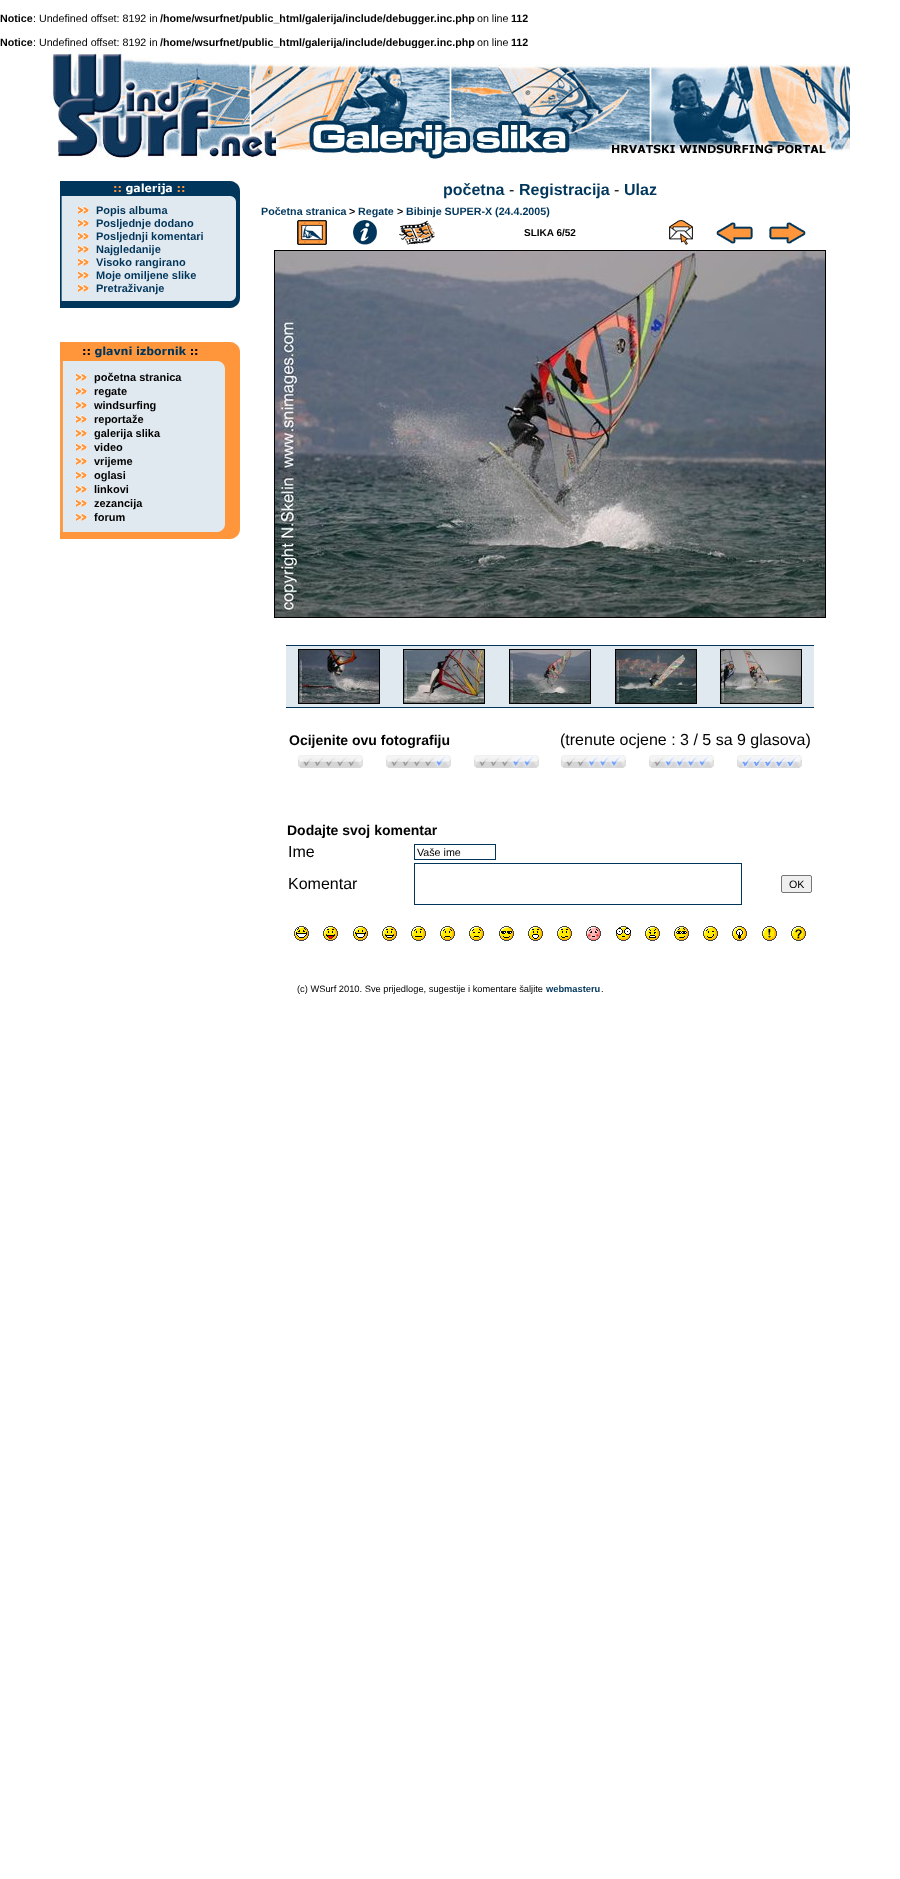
<!DOCTYPE html>
<meta charset="utf-8">
<style>body { margin: 0 } canvas { display: block }</style>
<canvas id="canvas" width="900" height="1879"></canvas>
<img id="img1" src="img_04.png" hidden>
<img id="img2" src="img_05.png" hidden>
<img id="img3" src="img_06.png" hidden>
<img id="img4" src="img_07.png" hidden>
<img id="img5" src="img_08.png" hidden>
<img id="img6" src="img_09.png" hidden>
<img id="img7" src="img_10.png" hidden>
<img id="img8" src="img_11.png" hidden>
<img id="img9" src="img_12.png" hidden>
<img id="img10" src="img_13.png" hidden>
<img id="img11" src="img_14.png" hidden>
<img id="img12" src="img_15.png" hidden>
<img id="img13" src="img_16.png" hidden>
<img id="img14" src="img_17.png" hidden>
<img id="img15" src="img_18.png" hidden>
<img id="img16" src="img_19.png" hidden>
<img id="img17" src="img_20.png" hidden>
<img id="img18" src="img_21.png" hidden>
<img id="img19" src="img_22.png" hidden>
<img id="img20" src="img_23.png" hidden>
<img id="img21" src="img_24.png" hidden>
<img id="img22" src="img_25.png" hidden>
<img id="img23" src="img_26.png" hidden>
<img id="img24" src="img_27.png" hidden>
<img id="img25" src="img_28.png" hidden>
<img id="img26" src="img_29.png" hidden>
<img id="img27" src="img_30.png" hidden>
<img id="img28" src="img_31.png" hidden>
<img id="img29" src="img_32.png" hidden>
<img id="img30" src="img_33.png" hidden>
<img id="img31" src="img_34.png" hidden>
<img id="img32" src="img_35.png" hidden>
<img id="img33" src="img_36.png" hidden>
<img id="img34" src="img_37.png" hidden>
<img id="img35" src="img_38.png" hidden>
<img id="img36" src="img_39.png" hidden>
<img id="img37" src="img_40.png" hidden>
<img id="img38" src="img_41.png" hidden>
<img id="img39" src="img_42.png" hidden>
<img id="img40" src="img_43.png" hidden>
<img id="img41" src="img_44.png" hidden>
<img id="img42" src="img_45.png" hidden>
<img id="img43" src="img_46.png" hidden>
<img id="img44" src="img_47.png" hidden>
<img id="img45" src="img_01.png" hidden>
<img id="img46" src="img_02.png" hidden>
<img id="img47" src="img_03.png" hidden>
<script>
window.onload = function () {
	const canvas = document.getElementById("canvas");
	const ctx = canvas.getContext("2d");
	ctx.miterLimit = 4;
	ctx.fontKerning = "normal";
	function txt(s, x, y) {
		ctx.fillText(s, x, y);
	}
	function fill(x, y, w, h) {
		ctx.fillRect(x, y, w, h);
	}
	function img(id, x, y, w, h) {
		ctx.drawImage(document.getElementById(id), x, y, w, h);
	}

	ctx.fillStyle = "#FFFFFF";
	fill(0, 0, 900, 1879);
	img("img1", 650, 64, 200, 96);
	img("img2", 60, 181, 180, 22);
	img("img3", 60, 203, 180, 92);
	img("img4", 78, 206, 11, 8);
	img("img4", 78, 219, 11, 8);
	img("img4", 78, 232, 11, 8);
	img("img4", 78, 245, 11, 8);
	img("img4", 78, 258, 11, 8);
	img("img4", 78, 271, 11, 8);
	img("img4", 78, 284, 11, 8);
	img("img5", 60, 295, 180, 13);
	img("img6", 60, 342, 180, 28);
	img("img7", 60, 370, 180, 154);
	img("img4", 76, 373, 11, 8);
	img("img4", 76, 387, 11, 8);
	img("img4", 76, 401, 11, 8);
	img("img4", 76, 415, 11, 8);
	img("img4", 76, 429, 11, 8);
	img("img4", 76, 443, 11, 8);
	img("img4", 76, 457, 11, 8);
	img("img4", 76, 471, 11, 8);
	img("img4", 76, 485, 11, 8);
	img("img4", 76, 499, 11, 8);
	img("img4", 76, 513, 11, 8);
	img("img8", 60, 524, 180, 15);
	img("img9", 297, 220, 30, 25);
	img("img10", 353, 220, 24, 25);
	img("img11", 399, 220, 36, 25);
	img("img12", 669, 220, 24, 25);
	img("img13", 716, 222, 37, 22);
	img("img14", 769, 222, 37, 22);
	ctx.strokeStyle = "#000000";
	ctx.strokeRect(274.5, 250.5, 551, 367);
	img("img15", 275, 251, 550, 366);
	ctx.fillStyle = "#E1E9F0";
	fill(286, 646, 528, 61);
	ctx.fillStyle = "#00365B";
	fill(286, 645, 528, 1);
	fill(286, 707, 528, 1);
	ctx.strokeRect(298.5, 649.5, 81, 54);
	img("img16", 299, 650, 80, 53);
	ctx.strokeRect(403.5, 649.5, 81, 54);
	img("img17", 404, 650, 80, 53);
	ctx.strokeRect(509.5, 649.5, 81, 54);
	img("img18", 510, 650, 80, 53);
	ctx.strokeRect(615.5, 649.5, 81, 54);
	img("img19", 616, 650, 80, 53);
	ctx.strokeRect(720.5, 649.5, 81, 54);
	img("img20", 721, 650, 80, 53);
	img("img21", 298, 755, 65, 13);
	img("img22", 386, 755, 65, 13);
	img("img23", 474, 755, 65, 13);
	img("img24", 561, 755, 65, 13);
	img("img25", 649, 755, 65, 13);
	img("img26", 737, 755, 65, 13);
	ctx.strokeStyle = "#00365B";
	ctx.strokeRect(414.5, 844.5, 81, 15);
	ctx.strokeRect(414.5, 863.5, 327, 41);
	ctx.fillStyle = "#EFEFEF";
	ctx.beginPath();
	ctx.roundRect(781.5, 875.5, 30, 17, 1.5);
	ctx.fill();
	ctx.strokeStyle = "#767676";
	ctx.stroke();
	img("img27", 294, 926, 15, 15);
	img("img28", 323, 926, 15, 15);
	img("img29", 353, 926, 15, 15);
	img("img30", 382, 926, 15, 15);
	img("img31", 411, 926, 15, 15);
	img("img32", 440, 926, 15, 15);
	img("img33", 469, 926, 15, 15);
	img("img34", 499, 926, 15, 15);
	img("img35", 528, 926, 15, 15);
	img("img36", 557, 926, 15, 15);
	img("img37", 586, 926, 15, 15);
	img("img38", 616, 926, 15, 15);
	img("img39", 645, 926, 15, 15);
	img("img40", 674, 926, 15, 15);
	img("img41", 703, 926, 15, 15);
	img("img42", 732, 926, 15, 15);
	img("img43", 762, 926, 15, 15);
	img("img44", 791, 926, 15, 15);
	ctx.font = "bold 10.7px Liberation Sans";
	ctx.fillStyle = "#000000";
	txt("Notice", 0, 22);
	ctx.font = "10.7px Liberation Sans";
	txt(": Undefined offset: 8192 in", 33, 22);
	ctx.font = "bold 10.7px Liberation Sans";
	txt("/home/wsurfnet/public_html/galerija/include/debugger.inc.php", 160, 22);
	ctx.font = "10.7px Liberation Sans";
	txt("on line", 477, 22);
	ctx.font = "bold 10.7px Liberation Sans";
	txt("112", 511, 22);
	txt("Notice", 0, 46);
	ctx.font = "10.7px Liberation Sans";
	txt(": Undefined offset: 8192 in", 33, 46);
	ctx.font = "bold 10.7px Liberation Sans";
	txt("/home/wsurfnet/public_html/galerija/include/debugger.inc.php", 160, 46);
	ctx.font = "10.7px Liberation Sans";
	txt("on line", 477, 46);
	ctx.font = "bold 10.7px Liberation Sans";
	txt("112", 511, 46);
	img("img45", 50, 48, 200, 112);
	img("img46", 250, 48, 200, 112);
	img("img47", 450, 48, 200, 112);
	ctx.font = "bold 11px Liberation Sans";
	ctx.fillStyle = "#00365B";
	txt("Popis albuma", 96, 214);
	txt("Posljednje dodano", 96, 227);
	txt("Posljednji komentari", 96, 240);
	txt("Najgledanije", 96, 253);
	txt("Visoko rangirano", 96, 266);
	txt("Moje omiljene slike", 96, 279);
	txt("Pretraživanje", 96, 292);
	ctx.fillStyle = "#000000";
	txt("početna stranica", 94, 381);
	txt("regate", 94, 395);
	txt("windsurfing", 94, 409);
	txt("reportaže", 94, 423);
	txt("galerija slika", 94, 437);
	txt("video", 94, 451);
	txt("vrijeme", 94, 465);
	txt("oglasi", 94, 479);
	txt("linkovi", 94, 493);
	txt("zezancija", 94, 507);
	txt("forum", 94, 521);
	ctx.font = "bold 16px Liberation Sans";
	ctx.fillStyle = "#00365B";
	txt("početna", 443, 195);
	ctx.font = "16px Liberation Sans";
	ctx.fillStyle = "#000000";
	txt("-", 509, 195);
	ctx.font = "bold 16px Liberation Sans";
	ctx.fillStyle = "#00365B";
	txt("Registracija", 519, 195);
	ctx.font = "16px Liberation Sans";
	ctx.fillStyle = "#000000";
	txt("-", 614, 195);
	ctx.font = "bold 16px Liberation Sans";
	ctx.fillStyle = "#00365B";
	txt("Ulaz", 624, 195);
	ctx.font = "bold 10.7px Liberation Sans";
	txt("Početna stranica", 261, 215);
	ctx.fillStyle = "#000000";
	txt(">", 349, 215);
	ctx.fillStyle = "#00365B";
	txt("Regate", 358, 215);
	ctx.fillStyle = "#000000";
	txt(">", 397, 215);
	ctx.fillStyle = "#00365B";
	txt("Bibinje SUPER-X (24.4.2005)", 406, 215);
	ctx.font = "bold 10px Liberation Sans";
	ctx.fillStyle = "#000000";
	txt("SLIKA 6/52", 524, 236);
	ctx.font = "bold 14px Liberation Sans";
	txt("Ocijenite ovu fotografiju", 289, 745);
	ctx.font = "16px Liberation Sans";
	txt("(trenute ocjene : 3 / 5 sa 9 glasova)", 560, 745);
	ctx.font = "bold 14px Liberation Sans";
	txt("Dodajte svoj komentar", 287, 835);
	ctx.font = "16px Liberation Sans";
	txt("Ime", 288, 857);
	ctx.font = "10.7px Liberation Sans";
	txt("Vaše ime", 417, 856);
	ctx.font = "16px Liberation Sans";
	txt("Komentar", 288, 889);
	ctx.font = "10.7px Liberation Sans";
	txt("OK", 789, 888);
	ctx.font = "9.3px Liberation Sans";
	txt("(c) WSurf 2010. Sve prijedloge, sugestije i komentare šaljite", 297, 992);
	ctx.font = "bold 9.3px Liberation Sans";
	ctx.fillStyle = "#00365B";
	txt("webmasteru", 546, 992);
	ctx.font = "9.3px Liberation Sans";
	ctx.fillStyle = "#000000";
	txt(".", 601, 992);
};
</script>
